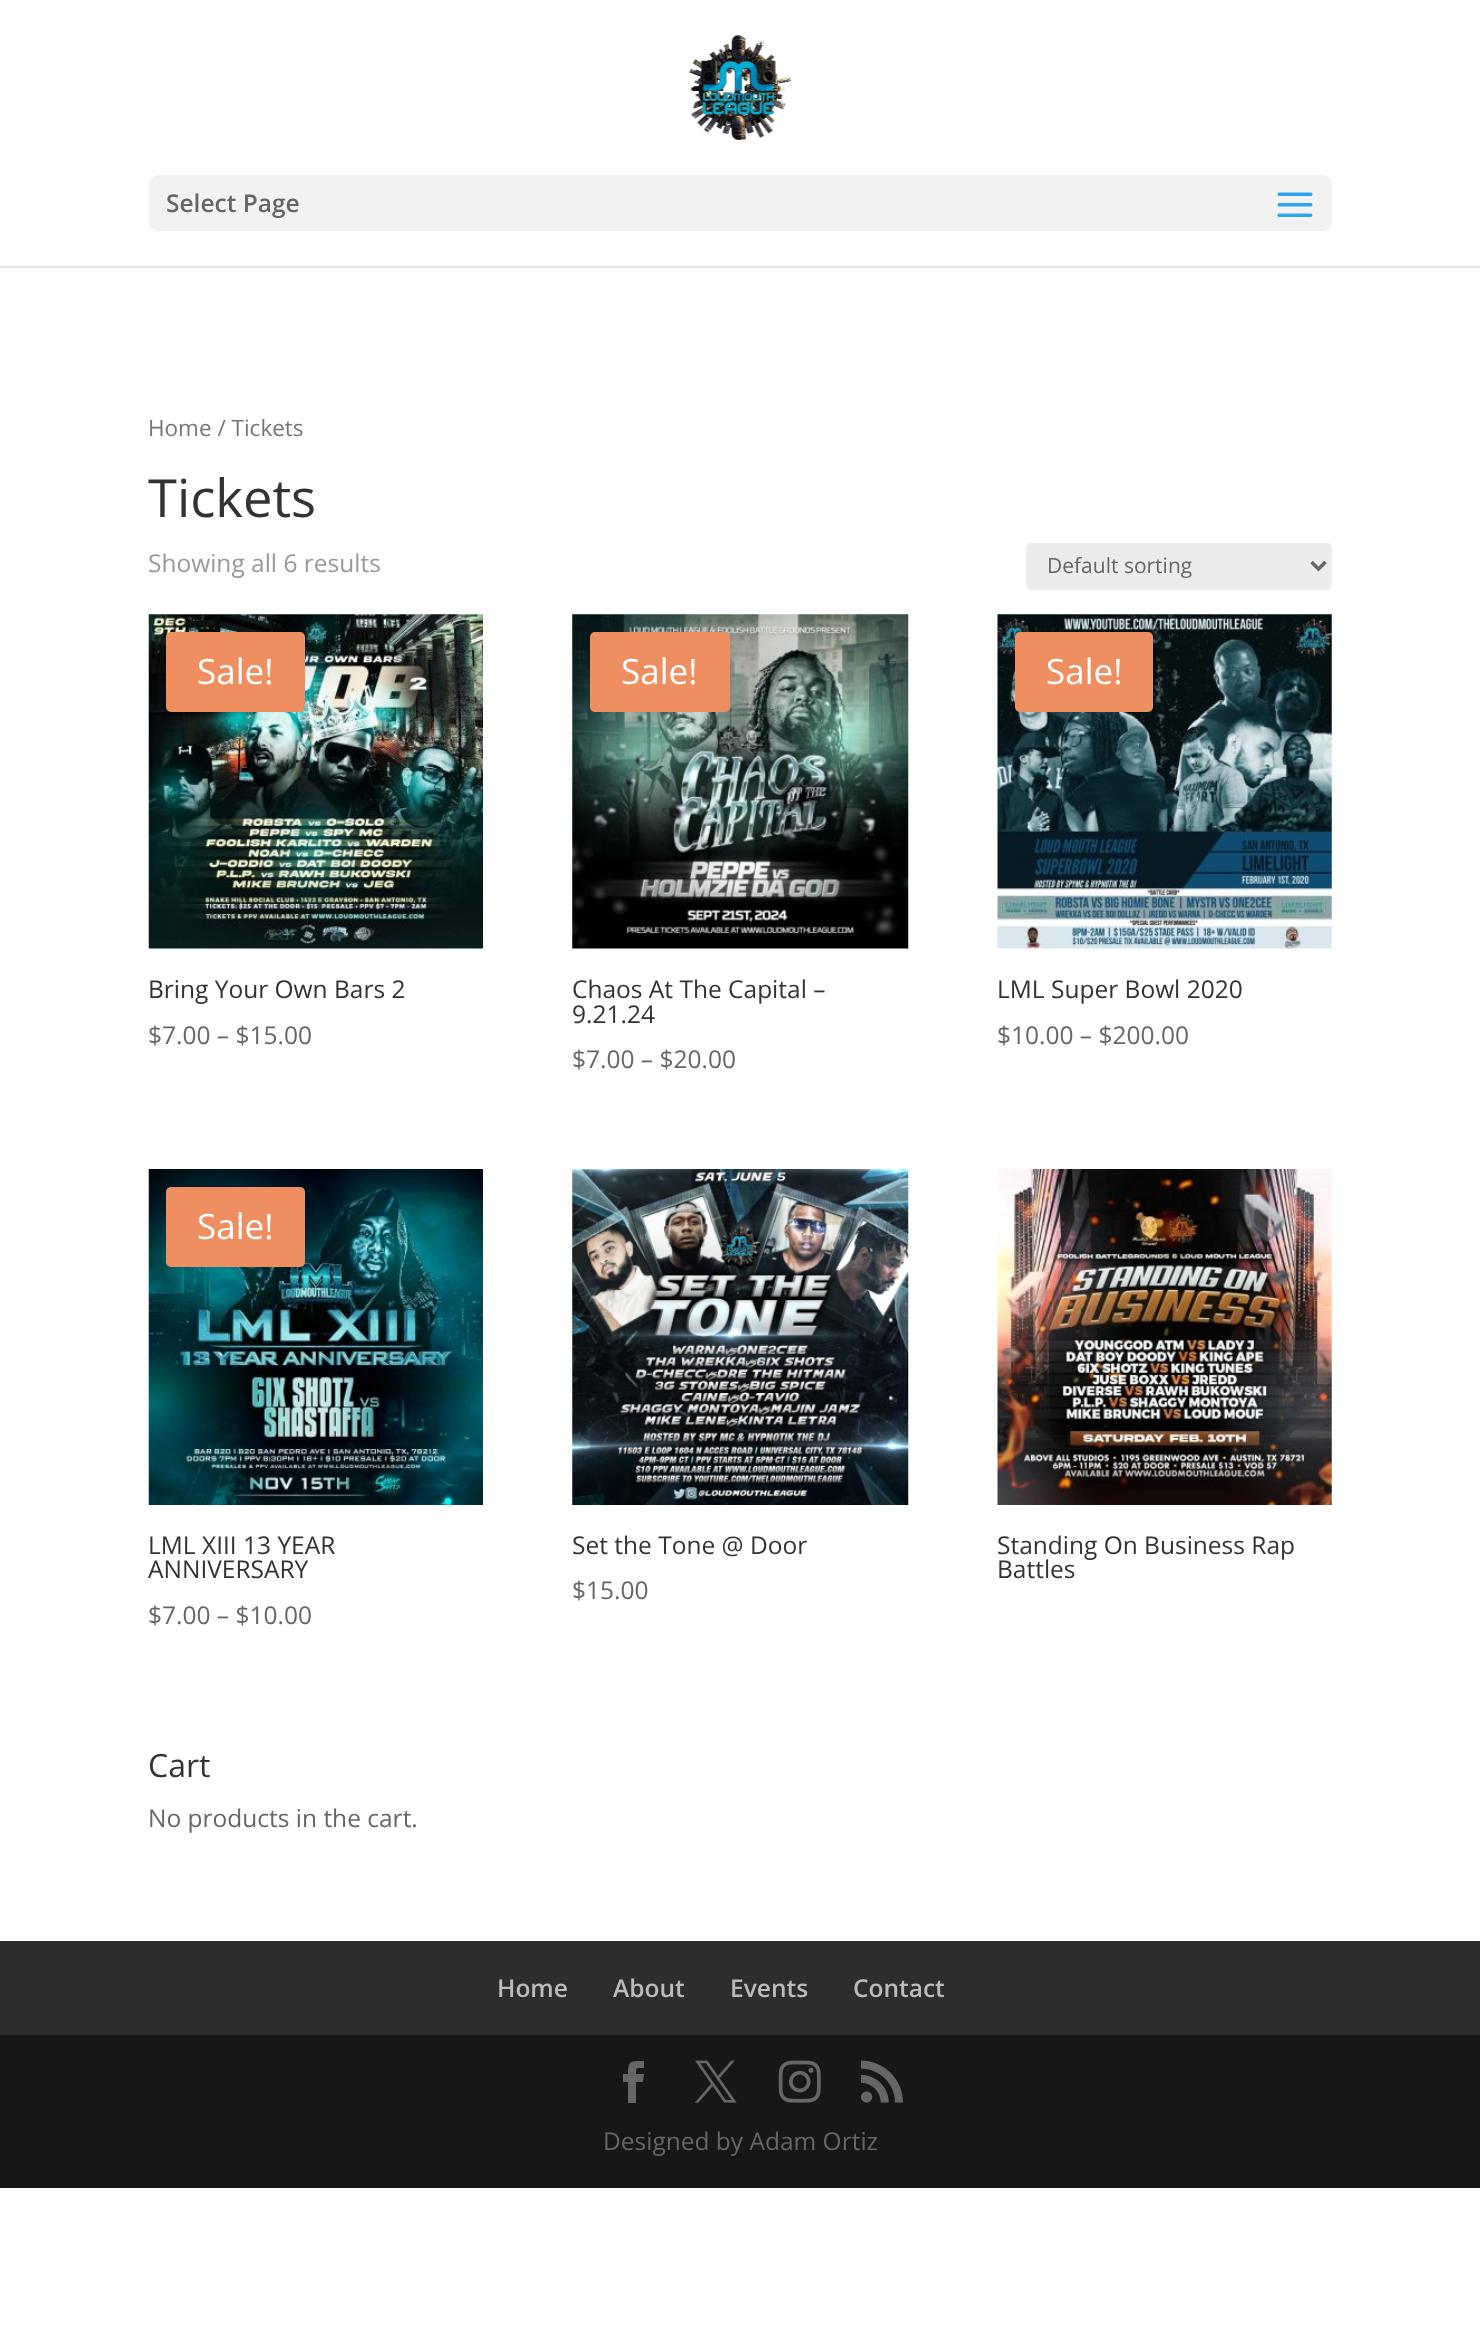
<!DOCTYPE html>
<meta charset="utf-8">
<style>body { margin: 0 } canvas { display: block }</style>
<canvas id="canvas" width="1480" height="2328"></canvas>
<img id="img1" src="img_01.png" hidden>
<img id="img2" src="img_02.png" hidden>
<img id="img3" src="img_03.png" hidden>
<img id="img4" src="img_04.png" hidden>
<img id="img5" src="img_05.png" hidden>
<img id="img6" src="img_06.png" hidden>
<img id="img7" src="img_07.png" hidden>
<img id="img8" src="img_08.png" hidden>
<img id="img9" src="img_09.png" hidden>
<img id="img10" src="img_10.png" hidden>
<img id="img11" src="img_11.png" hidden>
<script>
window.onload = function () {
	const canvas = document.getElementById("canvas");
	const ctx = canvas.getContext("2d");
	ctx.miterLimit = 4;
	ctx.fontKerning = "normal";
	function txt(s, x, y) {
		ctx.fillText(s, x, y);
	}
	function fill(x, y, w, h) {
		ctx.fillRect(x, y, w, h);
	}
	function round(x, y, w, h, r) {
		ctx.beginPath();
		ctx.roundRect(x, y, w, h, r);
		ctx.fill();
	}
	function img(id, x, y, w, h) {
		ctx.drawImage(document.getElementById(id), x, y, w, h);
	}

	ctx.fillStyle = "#FFFFFF";
	fill(0, 0, 1480, 2328);
	ctx.fillStyle = "#E6E6E6";
	ctx.beginPath();
	ctx.moveTo(0, 266);
	ctx.lineTo(0, 268);
	ctx.lineTo(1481, 268);
	ctx.lineTo(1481, 2);
	ctx.lineTo(1480, 2);
	ctx.lineTo(1480, 266);
	ctx.closePath();
	ctx.fill();
	img("img1", 688, 35, 104, 105);
	ctx.fillStyle = "#F2F2F2";
	round(149, 175, 1183, 56, 9);
	img("img2", 1277, 192, 36, 25);
	ctx.fillStyle = "#ECECEC";
	round(1026, 543, 306, 47, 5);
	ctx.beginPath();
	ctx.moveTo(1311.5, 562);
	ctx.lineTo(1318.5, 569);
	ctx.lineTo(1325.5, 562);
	ctx.strokeStyle = "#666666";
	ctx.lineWidth = 3.5;
	ctx.stroke();
	img("img3", 148, 614, 335, 335);
	ctx.fillStyle = "#EF8F61";
	round(166, 632, 139, 80, 5);
	img("img4", 572, 614, 337, 335);
	round(590, 632, 140, 80, 5);
	img("img5", 997, 614, 335, 335);
	round(1015, 632, 138, 80, 5);
	img("img6", 148, 1169, 335, 336);
	round(166, 1187, 139, 80, 5);
	img("img7", 572, 1169, 337, 336);
	img("img8", 997, 1169, 335, 336);
	ctx.fillStyle = "#2D2D2D";
	fill(0, 1941, 1480, 94);
	ctx.fillStyle = "#171717";
	fill(0, 2035, 1480, 153);
	ctx.fillStyle = "#666666";
	ctx.beginPath();
	ctx.moveTo(628, 2103);
	ctx.lineTo(636, 2103);
	ctx.lineTo(636, 2082);
	ctx.lineTo(643, 2082);
	ctx.lineTo(644, 2074);
	ctx.lineTo(636, 2074);
	ctx.bezierCurveTo(636, 2067, 636, 2068, 644, 2068);
	ctx.lineTo(644, 2061);
	ctx.bezierCurveTo(631, 2061, 628, 2060, 628, 2074);
	ctx.lineTo(623, 2074);
	ctx.lineTo(623, 2082);
	ctx.lineTo(628, 2082);
	ctx.closePath();
	ctx.fill();
	img("img9", 695, 2060, 42, 43);
	img("img10", 778, 2060, 43, 43);
	img("img11", 861, 2060, 42, 43);
	ctx.font = "600 24.5px Open Sans";
	txt("Select Page", 166, 212);
	ctx.font = "22.5px Open Sans";
	ctx.fillStyle = "#767676";
	txt("Home / Tickets", 148, 436);
	ctx.font = "52.5px Open Sans";
	ctx.fillStyle = "#333333";
	txt("Tickets", 148, 517);
	ctx.font = "24.5px Open Sans";
	ctx.fillStyle = "#999999";
	txt("Showing all 6 results", 148, 572);
	ctx.font = "21px Open Sans";
	ctx.fillStyle = "#666666";
	txt("Default sorting", 1047, 573);
	ctx.font = "35px Open Sans";
	ctx.fillStyle = "#FFFFFF";
	txt("Sale!", 197, 684);
	ctx.font = "24.5px Open Sans";
	ctx.fillStyle = "#333333";
	txt("Bring Your Own Bars 2", 148, 998);
	ctx.fillStyle = "#666666";
	txt("$7.00 – $15.00", 148, 1044);
	ctx.font = "35px Open Sans";
	ctx.fillStyle = "#FFFFFF";
	txt("Sale!", 621, 684);
	ctx.font = "24.5px Open Sans";
	ctx.fillStyle = "#333333";
	txt("Chaos At The Capital –", 572, 998);
	txt("9.21.24", 572, 1023);
	ctx.fillStyle = "#666666";
	txt("$7.00 – $20.00", 572, 1068);
	ctx.font = "35px Open Sans";
	ctx.fillStyle = "#FFFFFF";
	txt("Sale!", 1046, 684);
	ctx.font = "24.5px Open Sans";
	ctx.fillStyle = "#333333";
	txt("LML Super Bowl 2020", 997, 998);
	ctx.fillStyle = "#666666";
	txt("$10.00 – $200.00", 997, 1044);
	ctx.font = "35px Open Sans";
	ctx.fillStyle = "#FFFFFF";
	txt("Sale!", 197, 1239);
	ctx.font = "24.5px Open Sans";
	ctx.fillStyle = "#333333";
	txt("LML XIII 13 YEAR", 148, 1554);
	txt("ANNIVERSARY", 148, 1578);
	ctx.fillStyle = "#666666";
	txt("$7.00 – $10.00", 148, 1624);
	ctx.fillStyle = "#333333";
	txt("Set the Tone @ Door", 572, 1554);
	ctx.fillStyle = "#666666";
	txt("$15.00", 572, 1599);
	ctx.fillStyle = "#333333";
	txt("Standing On Business Rap", 997, 1554);
	txt("Battles", 997, 1578);
	ctx.font = "32px Open Sans";
	txt("Cart", 148, 1777);
	ctx.font = "24.5px Open Sans";
	ctx.fillStyle = "#666666";
	txt("No products in the cart.", 148, 1827);
	ctx.font = "600 24.5px Open Sans";
	ctx.fillStyle = "#BBBBBB";
	txt("Home", 497, 1997);
	txt("About", 613, 1997);
	txt("Events", 730, 1997);
	txt("Contact", 853, 1997);
	ctx.font = "24.5px Open Sans";
	ctx.fillStyle = "#666666";
	txt("Designed by Adam Ortiz", 603, 2150);
};
</script>
